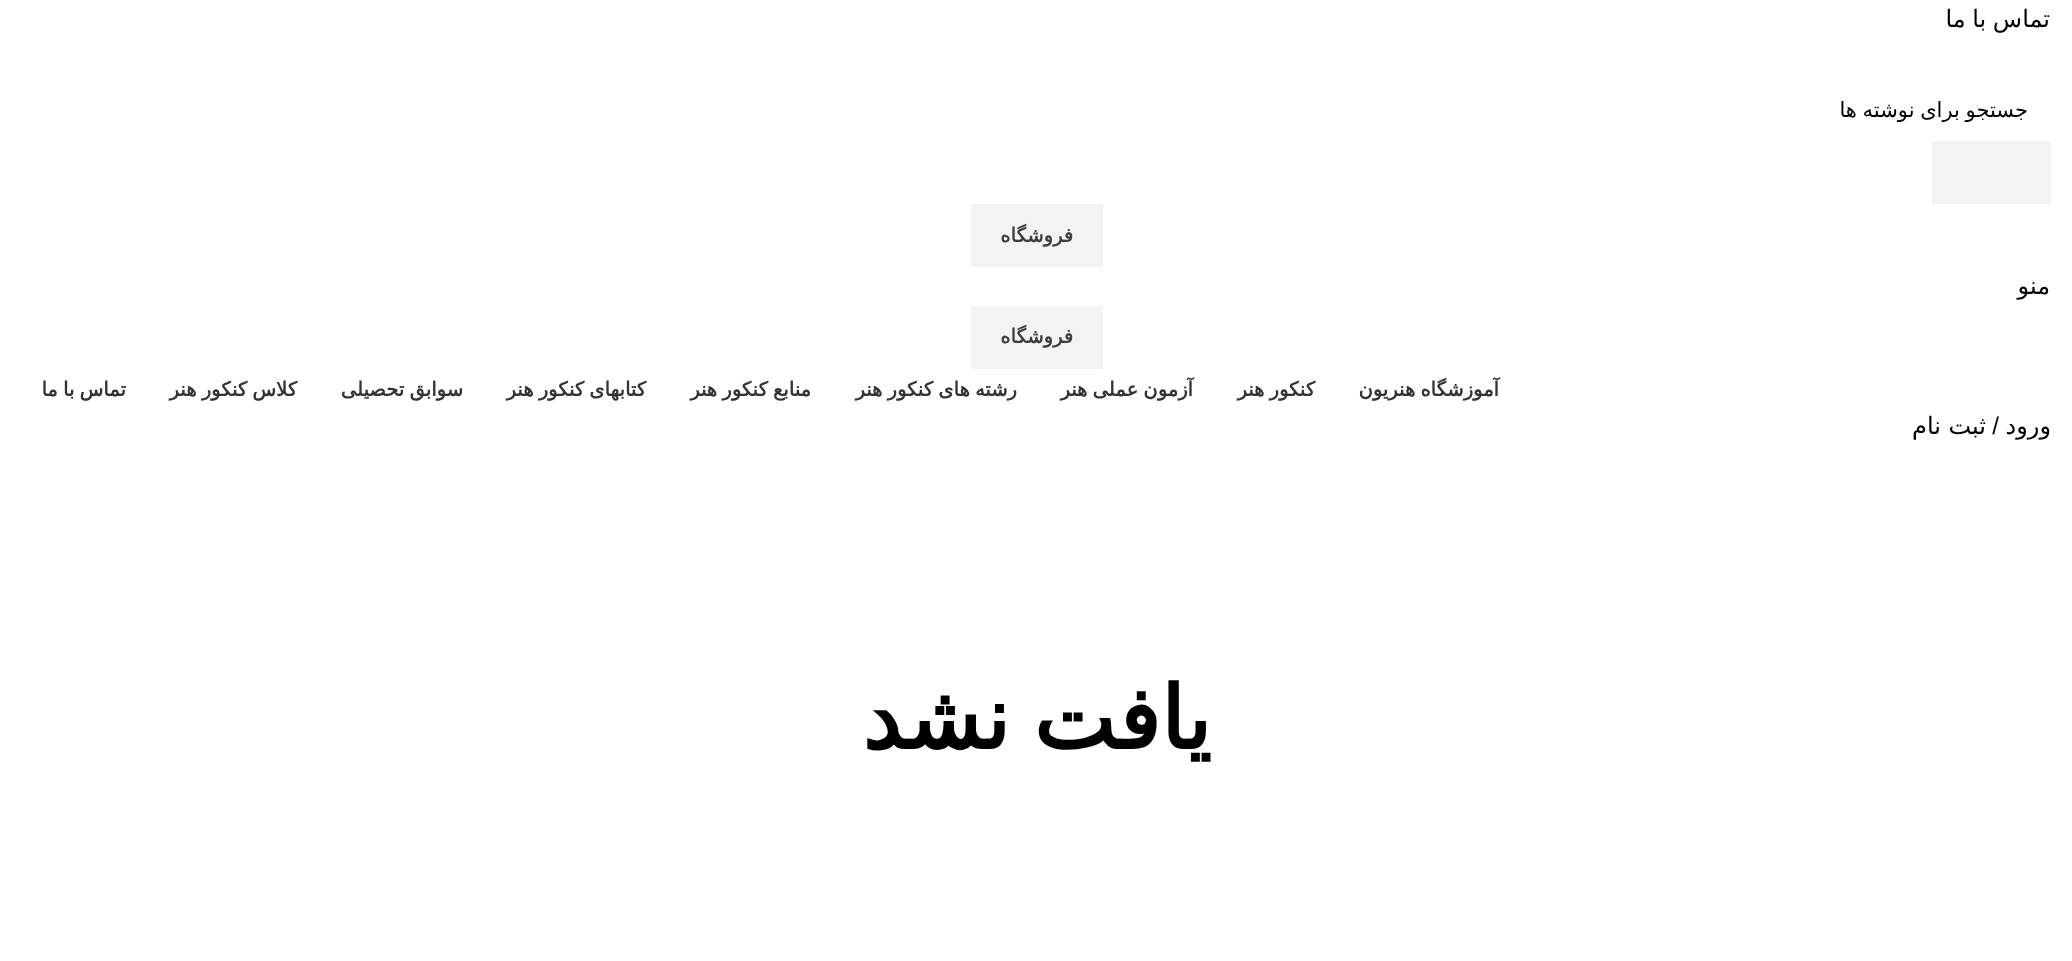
<!DOCTYPE html>
<meta charset="utf-8">
<style>body { margin: 0 } canvas { display: block }</style>
<canvas id="canvas" width="2072" height="961"></canvas>
<script>
window.onload = function () {
	const canvas = document.getElementById("canvas");
	const ctx = canvas.getContext("2d");
	ctx.miterLimit = 4;
	ctx.fontKerning = "normal";
	function txt(s, x, y) {
		ctx.fillText(s, x, y);
	}
	function fill(x, y, w, h) {
		ctx.fillRect(x, y, w, h);
	}

	ctx.fillStyle = "#FFFFFF";
	fill(0, 0, 2072, 961);
	ctx.fillStyle = "#F3F3F3";
	fill(1932, 141, 119, 63);
	fill(971, 204, 132, 63);
	fill(971, 306, 132, 63);
	ctx.wordSpacing = "-1px";
	ctx.direction = "rtl";
	ctx.font = "24px DejaVu Sans";
	ctx.fillStyle = "#000000";
	txt("تماس با ما", 2050, 27);
	ctx.save();
	ctx.beginPath();
	ctx.rect(45, 98, 1983, 24);
	ctx.clip();
	ctx.font = "21px DejaVu Sans";
	txt("جستجو برای نوشته ها", 2028, 117);
	ctx.restore();
	ctx.wordSpacing = "0px";
	ctx.font = "bold 19.5px DejaVu Sans";
	ctx.fillStyle = "#3E3E3E";
	txt("فروشگاه", 1073, 242);
	ctx.font = "24px DejaVu Sans";
	ctx.fillStyle = "#000000";
	txt("منو", 2050, 294);
	ctx.font = "bold 19.5px DejaVu Sans";
	ctx.fillStyle = "#3E3E3E";
	txt("فروشگاه", 1073, 343);
	ctx.wordSpacing = "-1px";
	ctx.fillStyle = "#333333";
	txt("آموزشگاه هنریون", 1499, 396);
	txt("کنکور هنر", 1315, 396);
	txt("آزمون عملی هنر", 1193, 396);
	txt("رشته های کنکور هنر", 1017, 396);
	txt("منابع کنکور هنر", 811, 396);
	txt("کتابهای کنکور هنر", 646, 396);
	txt("سوابق تحصیلی", 463, 396);
	txt("کلاس کنکور هنر", 297, 396);
	txt("تماس با ما", 126, 396);
	ctx.wordSpacing = "0px";
	ctx.font = "24px DejaVu Sans";
	ctx.fillStyle = "#000000";
	txt("ورود", 2051, 434);
	ctx.font = "24px Liberation Sans";
	txt("/", 1999, 434);
	ctx.font = "24px DejaVu Sans";
	txt("ثبت نام", 1986, 434);
	ctx.wordSpacing = "-4px";
	ctx.font = "bold 87px DejaVu Sans";
	txt("یافت نشد", 1211, 749);
};
</script>
